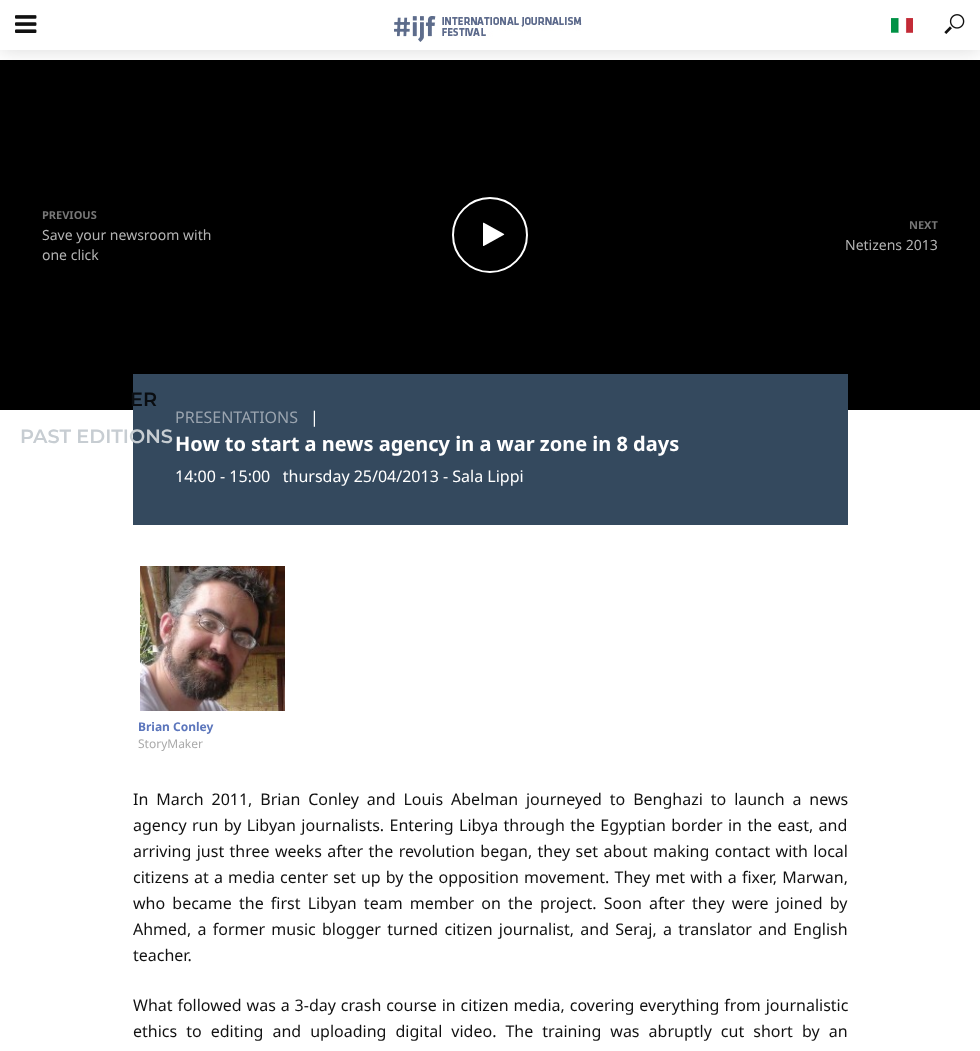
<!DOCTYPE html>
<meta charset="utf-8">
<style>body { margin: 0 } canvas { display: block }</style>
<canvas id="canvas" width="980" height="1051"></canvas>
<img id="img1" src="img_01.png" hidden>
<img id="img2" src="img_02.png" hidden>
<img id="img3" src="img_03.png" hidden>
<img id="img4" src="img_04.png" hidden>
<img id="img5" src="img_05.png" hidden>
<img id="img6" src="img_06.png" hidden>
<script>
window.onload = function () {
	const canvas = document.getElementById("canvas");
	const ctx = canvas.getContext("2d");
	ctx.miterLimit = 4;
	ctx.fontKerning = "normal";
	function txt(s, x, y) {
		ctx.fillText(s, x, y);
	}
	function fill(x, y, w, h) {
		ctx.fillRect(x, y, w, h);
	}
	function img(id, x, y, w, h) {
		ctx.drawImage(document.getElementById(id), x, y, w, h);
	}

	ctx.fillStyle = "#FFFFFF";
	fill(0, 0, 980, 1051);
	ctx.fillStyle = "#000000";
	fill(0, 60, 980, 350);
	ctx.beginPath();
	ctx.arc(490, 235, 37, 0, Math.PI * 2);
	ctx.strokeStyle = "#FFFFFF";
	ctx.lineWidth = 2;
	ctx.stroke();
	img("img1", 483, 222, 22, 24);
	ctx.fillStyle = "#34495E";
	fill(133, 374, 715, 151);
	img("img2", 140, 566, 145, 145);
	ctx.save();
	ctx.beginPath();
	ctx.rect(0, 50, 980, 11);
	ctx.clip();
	ctx.fillStyle = "rgba(0, 0, 0, 0.15)";
	ctx.filter = "blur(10px)";
	ctx.beginPath();
	ctx.rect(0, 0, 980, 50);
	ctx.fill();
	ctx.filter = "none";
	ctx.restore();
	img("img3", 394, 16, 188, 26);
	img("img4", 891, 18, 22, 15);
	img("img5", 944, 14, 21, 20);
	img("img6", 15, 15, 22, 18);
	ctx.font = "bold 11px Noto Sans";
	ctx.fillStyle = "#777777";
	txt("PREVIOUS", 42, 219);
	ctx.font = "14px Noto Sans";
	ctx.fillStyle = "#B3B3B3";
	txt("Save your newsroom with", 42, 240);
	txt("one click", 42, 260);
	ctx.font = "bold 11px Noto Sans";
	ctx.fillStyle = "#777777";
	txt("NEXT", 909, 229);
	ctx.font = "14px Noto Sans";
	ctx.fillStyle = "#B3B3B3";
	txt("Netizens 2013", 845, 250);
	ctx.font = "16px Noto Sans";
	ctx.fillStyle = "#9AA4AF";
	txt("PRESENTATIONS", 175, 423);
	ctx.fillStyle = "#FFFFFF";
	txt("|", 310, 423);
	ctx.font = "bold 20px Noto Sans";
	txt("How to start a news agency in a war zone in 8 days", 175, 451);
	ctx.font = "16px Noto Sans";
	txt("14:00 - 15:00   thursday 25/04/2013 - Sala Lippi", 175, 482);
	ctx.font = "bold 12px Noto Sans";
	ctx.fillStyle = "#5C76BC";
	txt("Brian Conley", 138, 731);
	ctx.font = "12px Noto Sans";
	ctx.fillStyle = "#AAAAAA";
	txt("StoryMaker", 138, 748);
	ctx.wordSpacing = "3.75px";
	ctx.font = "16px Noto Sans";
	ctx.fillStyle = "#111111";
	txt("In March 2011, Brian Conley and Louis Abelman journeyed to Benghazi to launch a news", 133, 805);
	ctx.wordSpacing = "1.25px";
	txt("agency run by Libyan journalists. Entering Libya through the Egyptian border in the east, and", 133, 831);
	txt("arriving just three weeks after the revolution began, they set about making contact with local", 133, 857);
	ctx.wordSpacing = "1px";
	txt("citizens at a media center set up by the opposition movement. They met with a fixer, Marwan,", 133, 883);
	ctx.wordSpacing = "3px";
	txt("who became the first Libyan team member on the project. Soon after they were joined by", 133, 909);
	ctx.wordSpacing = "2.1px";
	txt("Ahmed, a former music blogger turned citizen journalist, and Seraj, a translator and English", 133, 935);
	ctx.wordSpacing = "0px";
	txt("teacher.", 133, 961);
	ctx.wordSpacing = "0.75px";
	txt("What followed was a 3-day crash course in citizen media, covering everything from journalistic", 133, 1011);
	ctx.wordSpacing = "4.9px";
	txt("ethics to editing and uploading digital video. The training was abruptly cut short by an", 133, 1037);
	ctx.wordSpacing = "0px";
	ctx.font = "600 19.25px Montserrat";
	ctx.fillStyle = "#0A0D11";
	txt("ER", 130, 406);
	ctx.fillStyle = "#C7CDD2";
	txt("PAST EDITIONS", 20, 443);
};
</script>
